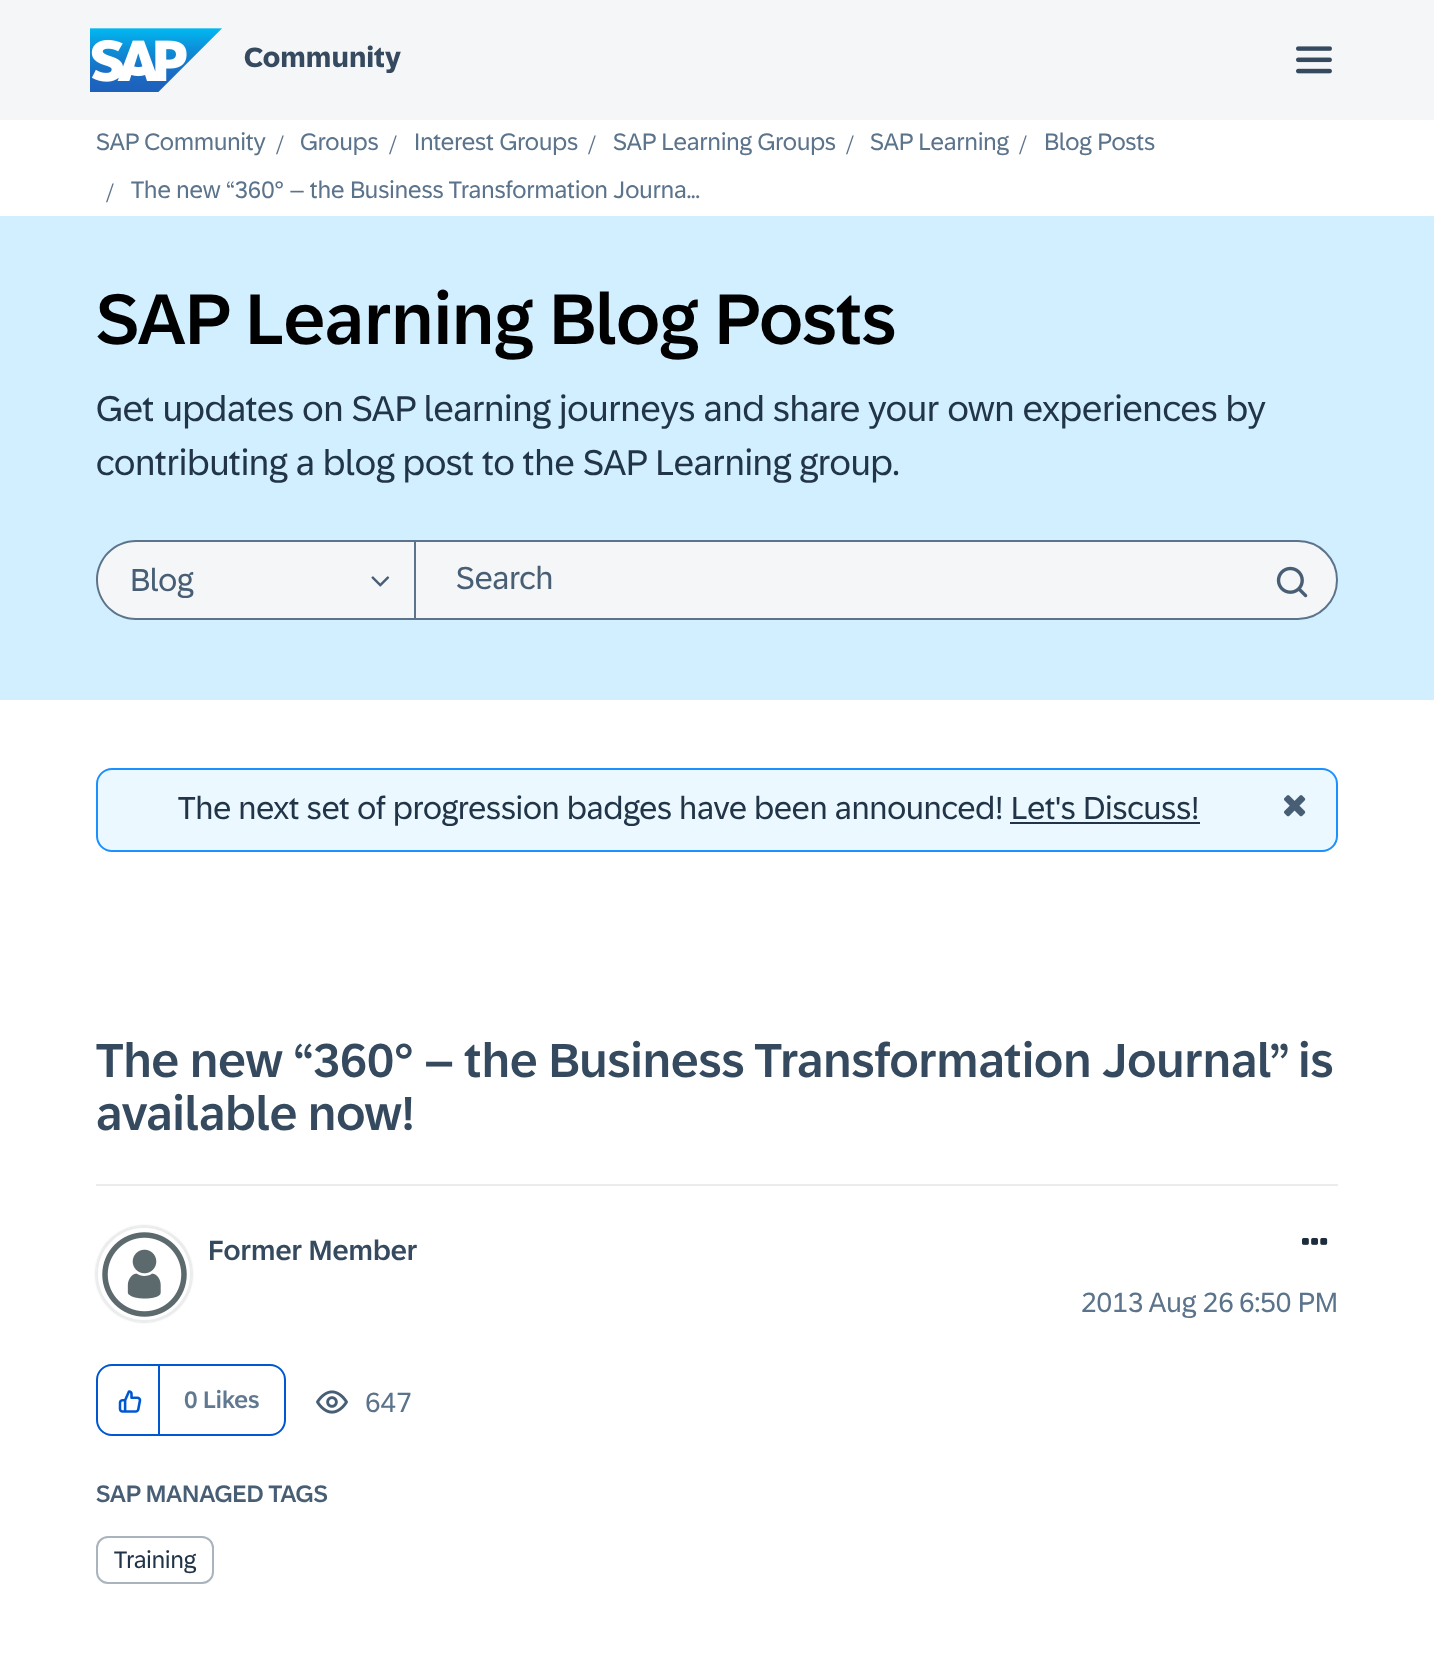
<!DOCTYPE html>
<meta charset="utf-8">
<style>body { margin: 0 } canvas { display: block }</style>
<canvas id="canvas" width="1434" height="1660"></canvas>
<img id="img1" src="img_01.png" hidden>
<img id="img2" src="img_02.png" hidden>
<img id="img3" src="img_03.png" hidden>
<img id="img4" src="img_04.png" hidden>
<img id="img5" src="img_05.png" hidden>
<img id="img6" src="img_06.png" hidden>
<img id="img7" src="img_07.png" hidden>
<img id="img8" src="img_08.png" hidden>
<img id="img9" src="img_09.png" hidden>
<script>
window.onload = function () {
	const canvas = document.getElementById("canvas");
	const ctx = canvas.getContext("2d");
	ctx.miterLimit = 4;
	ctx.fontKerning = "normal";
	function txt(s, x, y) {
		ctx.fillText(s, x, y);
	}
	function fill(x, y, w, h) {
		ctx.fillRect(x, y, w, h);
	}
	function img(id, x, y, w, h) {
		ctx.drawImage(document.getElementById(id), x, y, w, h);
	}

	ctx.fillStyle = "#FFFFFF";
	fill(0, 0, 1434, 1660);
	ctx.fillStyle = "#F5F6F7";
	fill(0, 0, 1434, 120);
	img("img1", 90, 28, 132, 64);
	img("img2", 1296, 46, 36, 28);
	ctx.fillStyle = "#D1EFFF";
	fill(0, 216, 1434, 484);
	ctx.fillStyle = "#F5F6F7";
	ctx.beginPath();
	ctx.roundRect(96, 540, 318, 80, [40, 0, 0, 40]);
	ctx.fill();
	ctx.fillStyle = "#5B738B";
	ctx.beginPath();
	ctx.moveTo(136, 540);
	ctx.lineTo(414, 540);
	ctx.lineTo(414, 620);
	ctx.lineTo(136, 620);
	ctx.bezierCurveTo(114, 620, 96, 602, 96, 580);
	ctx.bezierCurveTo(96, 558, 114, 540, 136, 540);
	ctx.closePath();
	ctx.moveTo(136, 542);
	ctx.lineTo(414, 542);
	ctx.lineTo(414, 618);
	ctx.lineTo(136, 618);
	ctx.bezierCurveTo(115, 618, 98, 601, 98, 580);
	ctx.bezierCurveTo(98, 559, 115, 542, 136, 542);
	ctx.closePath();
	ctx.fill("evenodd");
	img("img3", 371, 576, 19, 11);
	ctx.fillStyle = "#F5F6F7";
	ctx.beginPath();
	ctx.roundRect(415, 541, 922, 78, [0, 39, 39, 0]);
	ctx.fill();
	ctx.strokeStyle = "#5B738B";
	ctx.lineWidth = 2;
	ctx.stroke();
	img("img4", 1276, 566, 32, 32);
	ctx.fillStyle = "#EBF8FF";
	ctx.beginPath();
	ctx.roundRect(97, 769, 1240, 82, 15);
	ctx.fill();
	ctx.strokeStyle = "#1B90FF";
	ctx.stroke();
	ctx.fillStyle = "#223548";
	fill(1010, 822, 190, 2);
	img("img5", 1284, 795, 22, 22);
	ctx.fillStyle = "#EAECEE";
	fill(96, 1184, 1242, 2);
	ctx.save();
	ctx.beginPath();
	ctx.moveTo(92, 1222);
	ctx.lineTo(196, 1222);
	ctx.lineTo(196, 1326);
	ctx.lineTo(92, 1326);
	ctx.closePath();
	ctx.moveTo(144, 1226);
	ctx.bezierCurveTo(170.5, 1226, 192, 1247.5, 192, 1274);
	ctx.bezierCurveTo(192, 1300.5, 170.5, 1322, 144, 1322);
	ctx.bezierCurveTo(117.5, 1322, 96, 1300.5, 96, 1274);
	ctx.bezierCurveTo(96, 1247.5, 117.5, 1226, 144, 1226);
	ctx.closePath();
	ctx.clip("evenodd");
	ctx.fillStyle = "#C4C4C4";
	ctx.filter = "blur(1px)";
	ctx.beginPath();
	ctx.roundRect(96, 1226, 96, 96, 48);
	ctx.fill();
	ctx.filter = "none";
	ctx.restore();
	ctx.beginPath();
	ctx.arc(144, 1274, 47, 0, Math.PI * 2);
	ctx.strokeStyle = "#EAECEE";
	ctx.stroke();
	img("img6", 102, 1232, 85, 85);
	img("img7", 1302, 1238, 26, 7);
	ctx.beginPath();
	ctx.roundRect(97, 1365, 188, 70, 15);
	ctx.strokeStyle = "#0057D2";
	ctx.stroke();
	ctx.fillStyle = "#0057D2";
	fill(158, 1366, 2, 70);
	img("img8", 118, 1390, 24, 23);
	img("img9", 316, 1390, 32, 24);
	ctx.beginPath();
	ctx.roundRect(97, 1537, 116, 46, 11);
	ctx.strokeStyle = "#A9B4BE";
	ctx.stroke();
	ctx.font = "bold 28px '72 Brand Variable'";
	ctx.fillStyle = "#354A5F";
	txt("Community", 244, 67);
	ctx.font = "24px '72 Brand Variable'";
	ctx.fillStyle = "#5B738B";
	txt("SAP Community", 96, 150);
	ctx.font = "28px Liberation Serif";
	txt("/", 276, 154);
	ctx.font = "24px '72 Brand Variable'";
	txt("Groups", 300, 150);
	ctx.font = "28px Liberation Serif";
	txt("/", 389, 154);
	ctx.font = "24px '72 Brand Variable'";
	txt("Interest Groups", 414, 150);
	ctx.font = "28px Liberation Serif";
	txt("/", 588, 154);
	ctx.font = "24px '72 Brand Variable'";
	txt("SAP Learning Groups", 613, 150);
	ctx.font = "28px Liberation Serif";
	txt("/", 846, 154);
	ctx.font = "24px '72 Brand Variable'";
	txt("SAP Learning", 870, 150);
	ctx.font = "28px Liberation Serif";
	txt("/", 1019, 154);
	ctx.font = "24px '72 Brand Variable'";
	txt("Blog Posts", 1044, 150);
	ctx.font = "28px Liberation Serif";
	txt("/", 106, 202);
	ctx.font = "24px '72 Brand Variable'";
	txt("The new “360° – the Business Transformation Journa...", 131, 198);
	ctx.font = "500 72px '72 Brand Variable'";
	ctx.fillStyle = "#000000";
	txt("SAP Learning Blog Posts", 96, 344);
	ctx.font = "36px '72 Brand Variable'";
	ctx.fillStyle = "#223548";
	txt("Get updates on SAP learning journeys and share your own experiences by", 96, 421);
	txt("contributing a blog post to the SAP Learning group.", 96, 475);
	ctx.font = "32px '72 Brand Variable'";
	ctx.fillStyle = "#475E75";
	txt("Blog", 130, 591);
	txt("Search", 456, 589);
	ctx.fillStyle = "#223548";
	txt("The next set of progression badges have been announced! Let's Discuss!", 178, 819);
	ctx.font = "500 48px '72 Brand Variable'";
	ctx.fillStyle = "#354A5F";
	txt("The new “360° – the Business Transformation Journal” is", 96, 1077);
	txt("available now!", 96, 1130);
	ctx.font = "500 28px '72 Brand Variable'";
	txt("Former Member", 208, 1260);
	ctx.font = "28px '72 Brand Variable'";
	ctx.fillStyle = "#5B738B";
	txt("2013 Aug 26", 1081, 1312);
	txt("6:50 PM", 1239, 1312);
	ctx.font = "500 24px '72 Brand Variable'";
	ctx.fillStyle = "#617990";
	txt("0 Likes", 184, 1408);
	ctx.font = "28px '72 Brand Variable'";
	ctx.fillStyle = "#5B738B";
	txt("647", 365, 1412);
	ctx.font = "500 24px '72 Brand Variable'";
	ctx.fillStyle = "#475E75";
	txt("SAP MANAGED TAGS", 96, 1502);
	ctx.font = "24px '72 Brand Variable'";
	ctx.fillStyle = "#223548";
	txt("Training", 114, 1568);
};
</script>
